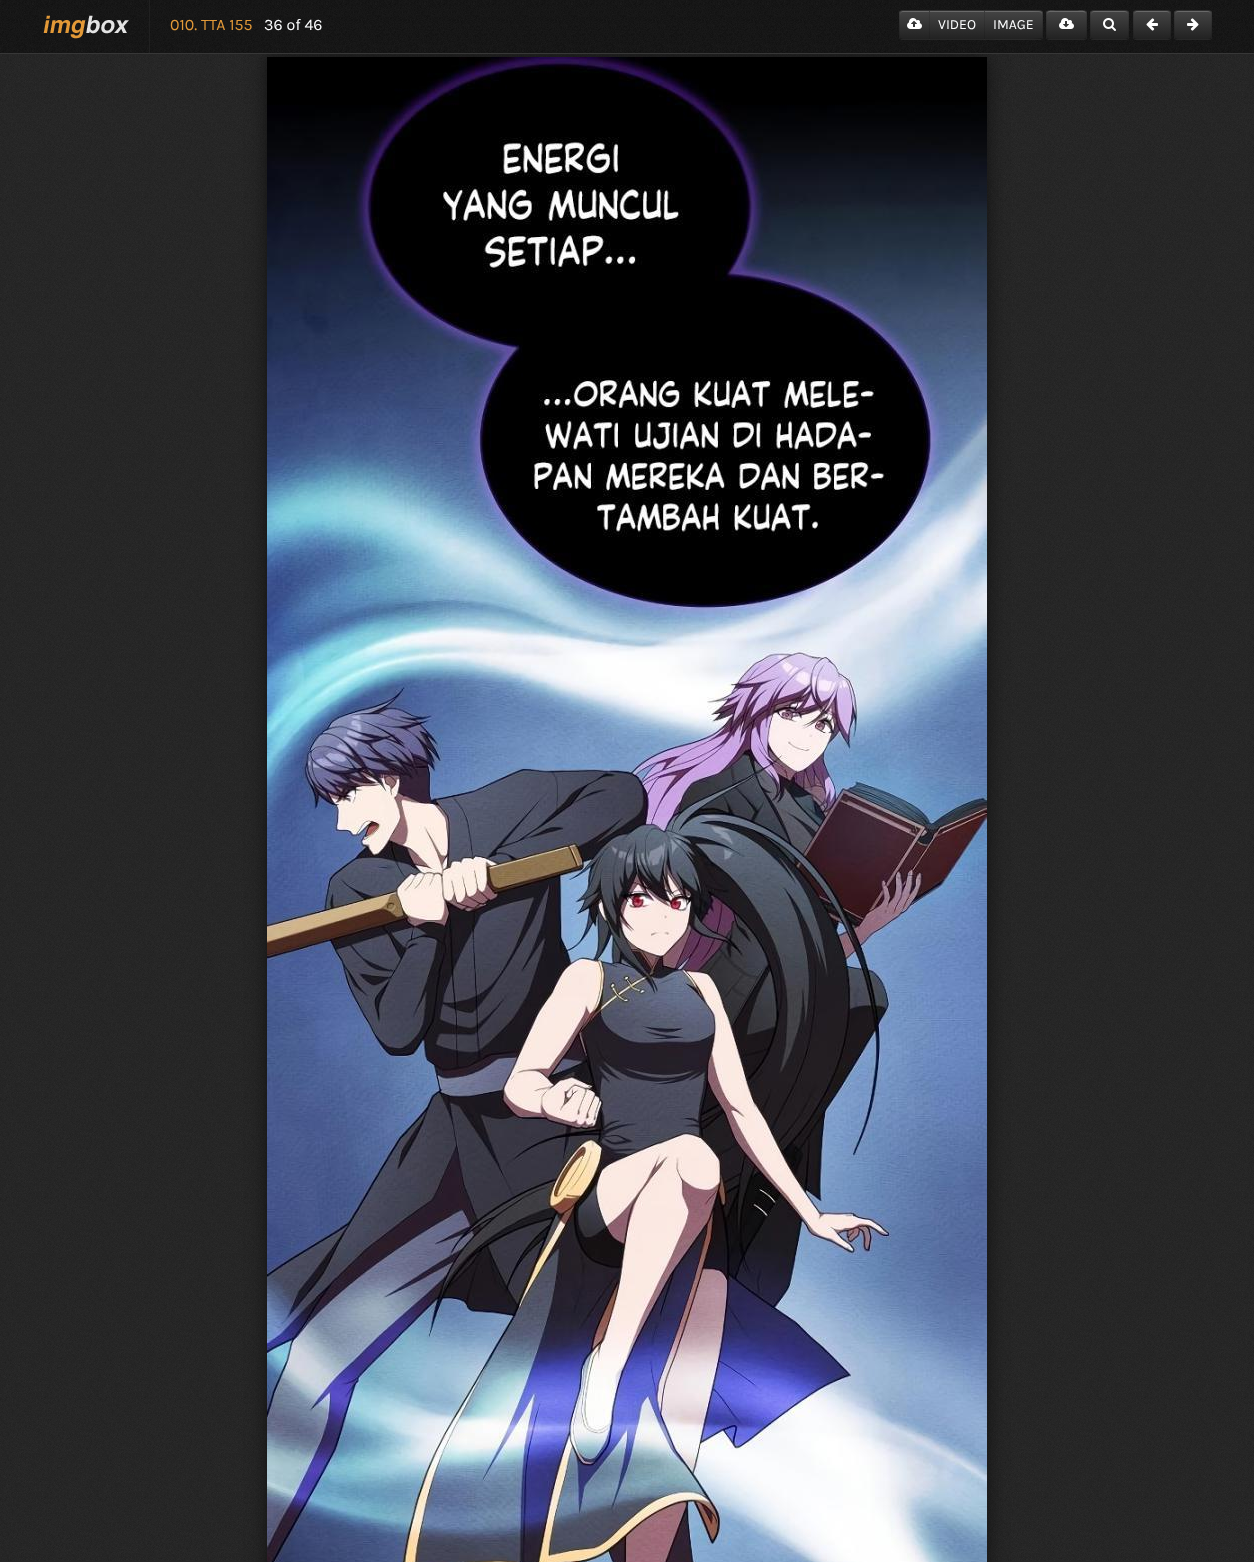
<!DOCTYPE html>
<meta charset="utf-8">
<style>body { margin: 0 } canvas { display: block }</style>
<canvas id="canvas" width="1254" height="1562"></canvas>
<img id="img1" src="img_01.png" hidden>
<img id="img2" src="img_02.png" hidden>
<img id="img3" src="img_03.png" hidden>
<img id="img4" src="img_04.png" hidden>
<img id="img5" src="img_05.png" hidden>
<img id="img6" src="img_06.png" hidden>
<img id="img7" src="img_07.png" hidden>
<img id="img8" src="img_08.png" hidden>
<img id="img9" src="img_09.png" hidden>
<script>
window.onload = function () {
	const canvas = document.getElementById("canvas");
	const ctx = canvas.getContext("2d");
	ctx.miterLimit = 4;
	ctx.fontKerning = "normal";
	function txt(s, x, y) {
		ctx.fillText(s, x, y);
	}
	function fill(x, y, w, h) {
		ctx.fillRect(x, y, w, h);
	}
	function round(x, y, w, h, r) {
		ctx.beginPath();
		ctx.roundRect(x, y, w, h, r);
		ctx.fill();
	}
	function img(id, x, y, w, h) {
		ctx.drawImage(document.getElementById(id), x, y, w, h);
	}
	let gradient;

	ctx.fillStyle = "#262626";
	fill(0, 0, 1254, 1562);
	img("img1", 0, 54, 1254, 1507);
	ctx.fillStyle = "#111111";
	ctx.filter = "blur(10px)";
	ctx.beginPath();
	ctx.rect(267, 57, 720, 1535);
	ctx.fill();
	ctx.filter = "none";
	img("img2", 0, 0, 1254, 53);
	ctx.fillStyle = "#373737";
	fill(0, 53, 1254, 1);
	img("img3", 43, 15, 86, 24);
	ctx.fillStyle = "#202020";
	fill(149, 0, 1, 53);
	ctx.fillStyle = "#363636";
	ctx.beginPath();
	ctx.roundRect(899, 10, 31, 30, [4, 0, 0, 4]);
	ctx.fill();
	ctx.save();
	ctx.beginPath();
	ctx.roundRect(899, 10, 31, 30, [4, 0, 0, 4]);
	ctx.clip();
	gradient = ctx.createLinearGradient(915, 11, 915, 39);
	gradient.addColorStop(0, "#444444");
	gradient.addColorStop(1, "#222222");
	ctx.fillStyle = gradient;
	fill(899, 11, 30, 28);
	ctx.restore();
	ctx.fillStyle = "#696969";
	ctx.beginPath();
	ctx.moveTo(903, 12);
	ctx.lineTo(929, 12);
	ctx.lineTo(929, 11);
	ctx.lineTo(903, 11);
	ctx.bezierCurveTo(901.5, 11, 900, 12.5, 900, 14);
	ctx.lineTo(900, 15);
	ctx.bezierCurveTo(900, 13, 901, 12, 903, 12);
	ctx.closePath();
	ctx.fill();
	ctx.fillStyle = "rgba(0, 0, 0, 0.1)";
	ctx.beginPath();
	ctx.moveTo(903, 10);
	ctx.bezierCurveTo(902, 10, 901, 10.5, 900, 11);
	ctx.lineTo(901, 12);
	ctx.bezierCurveTo(901.5, 11.5, 902, 11, 903, 11);
	ctx.lineTo(929, 11);
	ctx.lineTo(930, 10);
	ctx.closePath();
	ctx.fill();
	ctx.fillStyle = "rgba(0, 0, 0, 0.25)";
	ctx.beginPath();
	ctx.moveTo(930, 40);
	ctx.lineTo(929, 39);
	ctx.lineTo(903, 39);
	ctx.bezierCurveTo(902, 39, 901.5, 38.5, 901, 38);
	ctx.lineTo(900, 39);
	ctx.bezierCurveTo(901, 39.5, 902, 40, 903, 40);
	ctx.closePath();
	ctx.fill();
	ctx.fillStyle = "rgba(0, 0, 0, 0.1)";
	ctx.beginPath();
	ctx.moveTo(899, 14);
	ctx.lineTo(899, 36);
	ctx.bezierCurveTo(899, 37, 899.5, 38, 900, 39);
	ctx.lineTo(901, 38);
	ctx.bezierCurveTo(900.5, 37.5, 900, 37, 900, 36);
	ctx.lineTo(900, 14);
	ctx.bezierCurveTo(900, 13, 900.5, 12.5, 901, 12);
	ctx.lineTo(900, 11);
	ctx.bezierCurveTo(899.5, 12, 899, 13, 899, 14);
	ctx.closePath();
	ctx.fill();
	img("img4", 907, 18, 15, 11);
	ctx.fillStyle = "#363636";
	fill(929, 10, 55, 30);
	gradient = ctx.createLinearGradient(957, 11, 957, 39);
	gradient.addColorStop(0, "#444444");
	gradient.addColorStop(1, "#222222");
	ctx.fillStyle = gradient;
	fill(929, 11, 55, 28);
	ctx.fillStyle = "#696969";
	fill(930, 11, 54, 1);
	ctx.fillStyle = "#313131";
	ctx.beginPath();
	ctx.moveTo(929, 10);
	ctx.lineTo(985, 10);
	ctx.lineTo(984, 11);
	ctx.lineTo(930, 11);
	ctx.closePath();
	ctx.fill();
	ctx.fillStyle = "rgba(0, 0, 0, 0.25)";
	ctx.beginPath();
	ctx.moveTo(985, 40);
	ctx.lineTo(929, 40);
	ctx.lineTo(930, 39);
	ctx.lineTo(984, 39);
	ctx.closePath();
	ctx.fill();
	ctx.fillStyle = "rgba(0, 0, 0, 0.1)";
	ctx.beginPath();
	ctx.moveTo(929, 40);
	ctx.lineTo(929, 10);
	ctx.lineTo(930, 11);
	ctx.lineTo(930, 39);
	ctx.closePath();
	ctx.fill();
	ctx.fillStyle = "#363636";
	ctx.beginPath();
	ctx.roundRect(984, 10, 59, 30, [0, 4, 4, 0]);
	ctx.fill();
	ctx.save();
	ctx.beginPath();
	ctx.roundRect(984, 10, 59, 30, [0, 4, 4, 0]);
	ctx.clip();
	gradient = ctx.createLinearGradient(1014, 11, 1014, 39);
	gradient.addColorStop(0, "#444444");
	gradient.addColorStop(1, "#222222");
	ctx.fillStyle = gradient;
	fill(984, 11, 59, 28);
	ctx.restore();
	ctx.fillStyle = "#696969";
	ctx.beginPath();
	ctx.moveTo(985, 12);
	ctx.lineTo(1039, 12);
	ctx.bezierCurveTo(1041, 12, 1042, 13, 1042, 15);
	ctx.lineTo(1042, 14);
	ctx.bezierCurveTo(1042, 12, 1041, 11, 1039, 11);
	ctx.lineTo(985, 11);
	ctx.closePath();
	ctx.fill();
	ctx.fillStyle = "rgba(0, 0, 0, 0.1)";
	ctx.beginPath();
	ctx.moveTo(984, 10);
	ctx.lineTo(985, 11);
	ctx.bezierCurveTo(991, 11, 1039, 10, 1041, 12);
	ctx.lineTo(1042, 11);
	ctx.lineTo(1039, 10);
	ctx.closePath();
	ctx.fill();
	ctx.beginPath();
	ctx.moveTo(1043, 36);
	ctx.lineTo(1043, 14);
	ctx.bezierCurveTo(1043, 13, 1042.5, 12, 1042, 11);
	ctx.lineTo(1041, 12);
	ctx.bezierCurveTo(1042, 12, 1042, 13, 1042, 14);
	ctx.lineTo(1042, 36);
	ctx.bezierCurveTo(1042, 37, 1042, 38, 1041, 38);
	ctx.lineTo(1042, 39);
	ctx.bezierCurveTo(1042.5, 38, 1043, 37, 1043, 36);
	ctx.closePath();
	ctx.fill();
	ctx.fillStyle = "rgba(0, 0, 0, 0.25)";
	ctx.beginPath();
	ctx.moveTo(1039, 40);
	ctx.lineTo(1042, 39);
	ctx.lineTo(1041, 38);
	ctx.bezierCurveTo(1039, 40, 991, 39, 985, 39);
	ctx.lineTo(984, 40);
	ctx.closePath();
	ctx.fill();
	ctx.fillStyle = "rgba(0, 0, 0, 0.1)";
	ctx.beginPath();
	ctx.moveTo(984, 10);
	ctx.lineTo(984, 40);
	ctx.lineTo(985, 39);
	ctx.lineTo(985, 11);
	ctx.closePath();
	ctx.fill();
	ctx.fillStyle = "#363636";
	round(1046, 10, 41, 30, 4);
	ctx.save();
	ctx.beginPath();
	ctx.roundRect(1046, 10, 41, 30, 4);
	ctx.clip();
	gradient = ctx.createLinearGradient(1067, 11, 1067, 39);
	gradient.addColorStop(0, "#444444");
	gradient.addColorStop(1, "#222222");
	ctx.fillStyle = gradient;
	fill(1046, 11, 41, 28);
	ctx.restore();
	ctx.fillStyle = "#696969";
	ctx.beginPath();
	ctx.moveTo(1050, 12);
	ctx.lineTo(1083, 12);
	ctx.bezierCurveTo(1085, 12, 1086, 13, 1086, 15);
	ctx.bezierCurveTo(1086, 9.5, 1082, 11, 1077.5, 11);
	ctx.lineTo(1055.5, 11);
	ctx.bezierCurveTo(1051, 11, 1047, 9.5, 1047, 15);
	ctx.bezierCurveTo(1047, 13, 1048, 12, 1050, 12);
	ctx.closePath();
	ctx.fill();
	ctx.beginPath();
	ctx.moveTo(1085.5, 38.5);
	ctx.bezierCurveTo(1085, 39, 1084, 39.5, 1083, 39.5);
	ctx.lineTo(1050, 39.5);
	ctx.bezierCurveTo(1049, 39.5, 1048, 39, 1047.5, 38.5);
	ctx.strokeStyle = "rgba(0, 0, 0, 0.25)";
	ctx.stroke();
	ctx.beginPath();
	ctx.moveTo(1047.5, 38.5);
	ctx.bezierCurveTo(1045.5, 36.5, 1046.5, 28, 1046.5, 25);
	ctx.bezierCurveTo(1046.5, 6, 1045, 10.5, 1066.5, 10.5);
	ctx.bezierCurveTo(1088, 10.5, 1086.5, 6, 1086.5, 25);
	ctx.bezierCurveTo(1086.5, 28, 1087.5, 36.5, 1085.5, 38.5);
	ctx.strokeStyle = "rgba(0, 0, 0, 0.1)";
	ctx.stroke();
	img("img5", 1059, 18, 15, 11);
	ctx.fillStyle = "#363636";
	round(1090, 10, 39, 30, 4);
	ctx.save();
	ctx.beginPath();
	ctx.roundRect(1090, 10, 39, 30, 4);
	ctx.clip();
	gradient = ctx.createLinearGradient(1110, 11, 1110, 39);
	gradient.addColorStop(0, "#444444");
	gradient.addColorStop(1, "#222222");
	ctx.fillStyle = gradient;
	fill(1090, 11, 39, 28);
	ctx.restore();
	ctx.fillStyle = "#696969";
	ctx.beginPath();
	ctx.moveTo(1094, 12);
	ctx.lineTo(1125, 12);
	ctx.bezierCurveTo(1127, 12, 1128, 13, 1128, 15);
	ctx.bezierCurveTo(1128, 10, 1124, 11, 1120, 11);
	ctx.lineTo(1099, 11);
	ctx.bezierCurveTo(1095, 11, 1091, 10, 1091, 15);
	ctx.bezierCurveTo(1091, 13, 1092, 12, 1094, 12);
	ctx.closePath();
	ctx.fill();
	ctx.beginPath();
	ctx.moveTo(1127.5, 38.5);
	ctx.bezierCurveTo(1127, 39, 1126, 39.5, 1125, 39.5);
	ctx.lineTo(1094, 39.5);
	ctx.bezierCurveTo(1093, 39.5, 1092, 39, 1091.5, 38.5);
	ctx.strokeStyle = "rgba(0, 0, 0, 0.25)";
	ctx.stroke();
	ctx.beginPath();
	ctx.moveTo(1091.5, 38.5);
	ctx.bezierCurveTo(1091, 38, 1090.5, 37, 1090.5, 36);
	ctx.lineTo(1090.5, 14);
	ctx.bezierCurveTo(1090.5, 13, 1091, 12, 1091.5, 11.5);
	ctx.bezierCurveTo(1092, 11, 1093, 10.5, 1094, 10.5);
	ctx.lineTo(1125, 10.5);
	ctx.bezierCurveTo(1126, 10.5, 1127, 11, 1127.5, 11.5);
	ctx.bezierCurveTo(1128, 12, 1128.5, 13, 1128.5, 14);
	ctx.lineTo(1128.5, 36);
	ctx.bezierCurveTo(1128.5, 37, 1128, 38, 1127.5, 38.5);
	ctx.strokeStyle = "rgba(0, 0, 0, 0.1)";
	ctx.stroke();
	img("img6", 1103, 18, 13, 13);
	ctx.fillStyle = "#363636";
	round(1133, 10, 38, 30, 4);
	ctx.save();
	ctx.beginPath();
	ctx.roundRect(1133, 10, 38, 30, 4);
	ctx.clip();
	gradient = ctx.createLinearGradient(1152, 11, 1152, 39);
	gradient.addColorStop(0, "#444444");
	gradient.addColorStop(1, "#222222");
	ctx.fillStyle = gradient;
	fill(1133, 11, 38, 28);
	ctx.restore();
	ctx.fillStyle = "#696969";
	ctx.beginPath();
	ctx.moveTo(1137, 12);
	ctx.lineTo(1167, 12);
	ctx.bezierCurveTo(1169, 12, 1170, 13, 1170, 15);
	ctx.bezierCurveTo(1170, 10, 1166, 11, 1162, 11);
	ctx.lineTo(1142, 11);
	ctx.bezierCurveTo(1138, 11, 1134, 10, 1134, 15);
	ctx.bezierCurveTo(1134, 13, 1135, 12, 1137, 12);
	ctx.closePath();
	ctx.fill();
	ctx.beginPath();
	ctx.moveTo(1169.5, 38.5);
	ctx.bezierCurveTo(1169, 39, 1168, 39.5, 1167, 39.5);
	ctx.lineTo(1137, 39.5);
	ctx.bezierCurveTo(1136, 39.5, 1135, 39, 1134.5, 38.5);
	ctx.strokeStyle = "rgba(0, 0, 0, 0.25)";
	ctx.stroke();
	ctx.beginPath();
	ctx.moveTo(1134.5, 38.5);
	ctx.bezierCurveTo(1134, 38, 1133.5, 37, 1133.5, 36);
	ctx.lineTo(1133.5, 14);
	ctx.bezierCurveTo(1133.5, 13, 1134, 12, 1134.5, 11.5);
	ctx.bezierCurveTo(1135, 11, 1136, 10.5, 1137, 10.5);
	ctx.lineTo(1167, 10.5);
	ctx.bezierCurveTo(1168, 10.5, 1169, 11, 1169.5, 11.5);
	ctx.bezierCurveTo(1170, 12, 1170.5, 13, 1170.5, 14);
	ctx.lineTo(1170.5, 36);
	ctx.bezierCurveTo(1170.5, 37, 1170, 38, 1169.5, 38.5);
	ctx.strokeStyle = "rgba(0, 0, 0, 0.1)";
	ctx.stroke();
	img("img7", 1146, 18, 12, 13);
	ctx.fillStyle = "#363636";
	round(1174, 10, 38, 30, 4);
	ctx.save();
	ctx.beginPath();
	ctx.roundRect(1174, 10, 38, 30, 4);
	ctx.clip();
	gradient = ctx.createLinearGradient(1193, 11, 1193, 39);
	gradient.addColorStop(0, "#444444");
	gradient.addColorStop(1, "#222222");
	ctx.fillStyle = gradient;
	fill(1174, 11, 38, 28);
	ctx.restore();
	ctx.fillStyle = "#696969";
	ctx.beginPath();
	ctx.moveTo(1178, 12);
	ctx.lineTo(1208, 12);
	ctx.bezierCurveTo(1210, 12, 1211, 13, 1211, 15);
	ctx.bezierCurveTo(1211, 10, 1207, 11, 1203, 11);
	ctx.lineTo(1183, 11);
	ctx.bezierCurveTo(1179, 11, 1175, 10, 1175, 15);
	ctx.bezierCurveTo(1175, 13, 1176, 12, 1178, 12);
	ctx.closePath();
	ctx.fill();
	ctx.beginPath();
	ctx.moveTo(1210.5, 38.5);
	ctx.bezierCurveTo(1210, 39, 1209, 39.5, 1208, 39.5);
	ctx.lineTo(1178, 39.5);
	ctx.bezierCurveTo(1177, 39.5, 1176, 39, 1175.5, 38.5);
	ctx.strokeStyle = "rgba(0, 0, 0, 0.25)";
	ctx.stroke();
	ctx.beginPath();
	ctx.moveTo(1175.5, 38.5);
	ctx.bezierCurveTo(1175, 38, 1174.5, 37, 1174.5, 36);
	ctx.lineTo(1174.5, 14);
	ctx.bezierCurveTo(1174.5, 13, 1175, 12, 1175.5, 11.5);
	ctx.bezierCurveTo(1176, 11, 1177, 10.5, 1178, 10.5);
	ctx.lineTo(1208, 10.5);
	ctx.bezierCurveTo(1209, 10.5, 1210, 11, 1210.5, 11.5);
	ctx.bezierCurveTo(1211, 12, 1211.5, 13, 1211.5, 14);
	ctx.lineTo(1211.5, 36);
	ctx.bezierCurveTo(1211.5, 37, 1211, 38, 1210.5, 38.5);
	ctx.strokeStyle = "rgba(0, 0, 0, 0.1)";
	ctx.stroke();
	img("img8", 1187, 18, 12, 13);
	img("img9", 267, 57, 720, 1505);
	ctx.font = "16px Karla";
	ctx.fillStyle = "#E39938";
	txt("010. TTA 155", 170, 30);
	ctx.fillStyle = "#FDFEFF";
	txt("36 of 46", 264, 30);
	ctx.font = "14px Karla";
	txt("VIDEO", 938, 29);
	txt("IMAGE", 993, 29);
};
</script>
